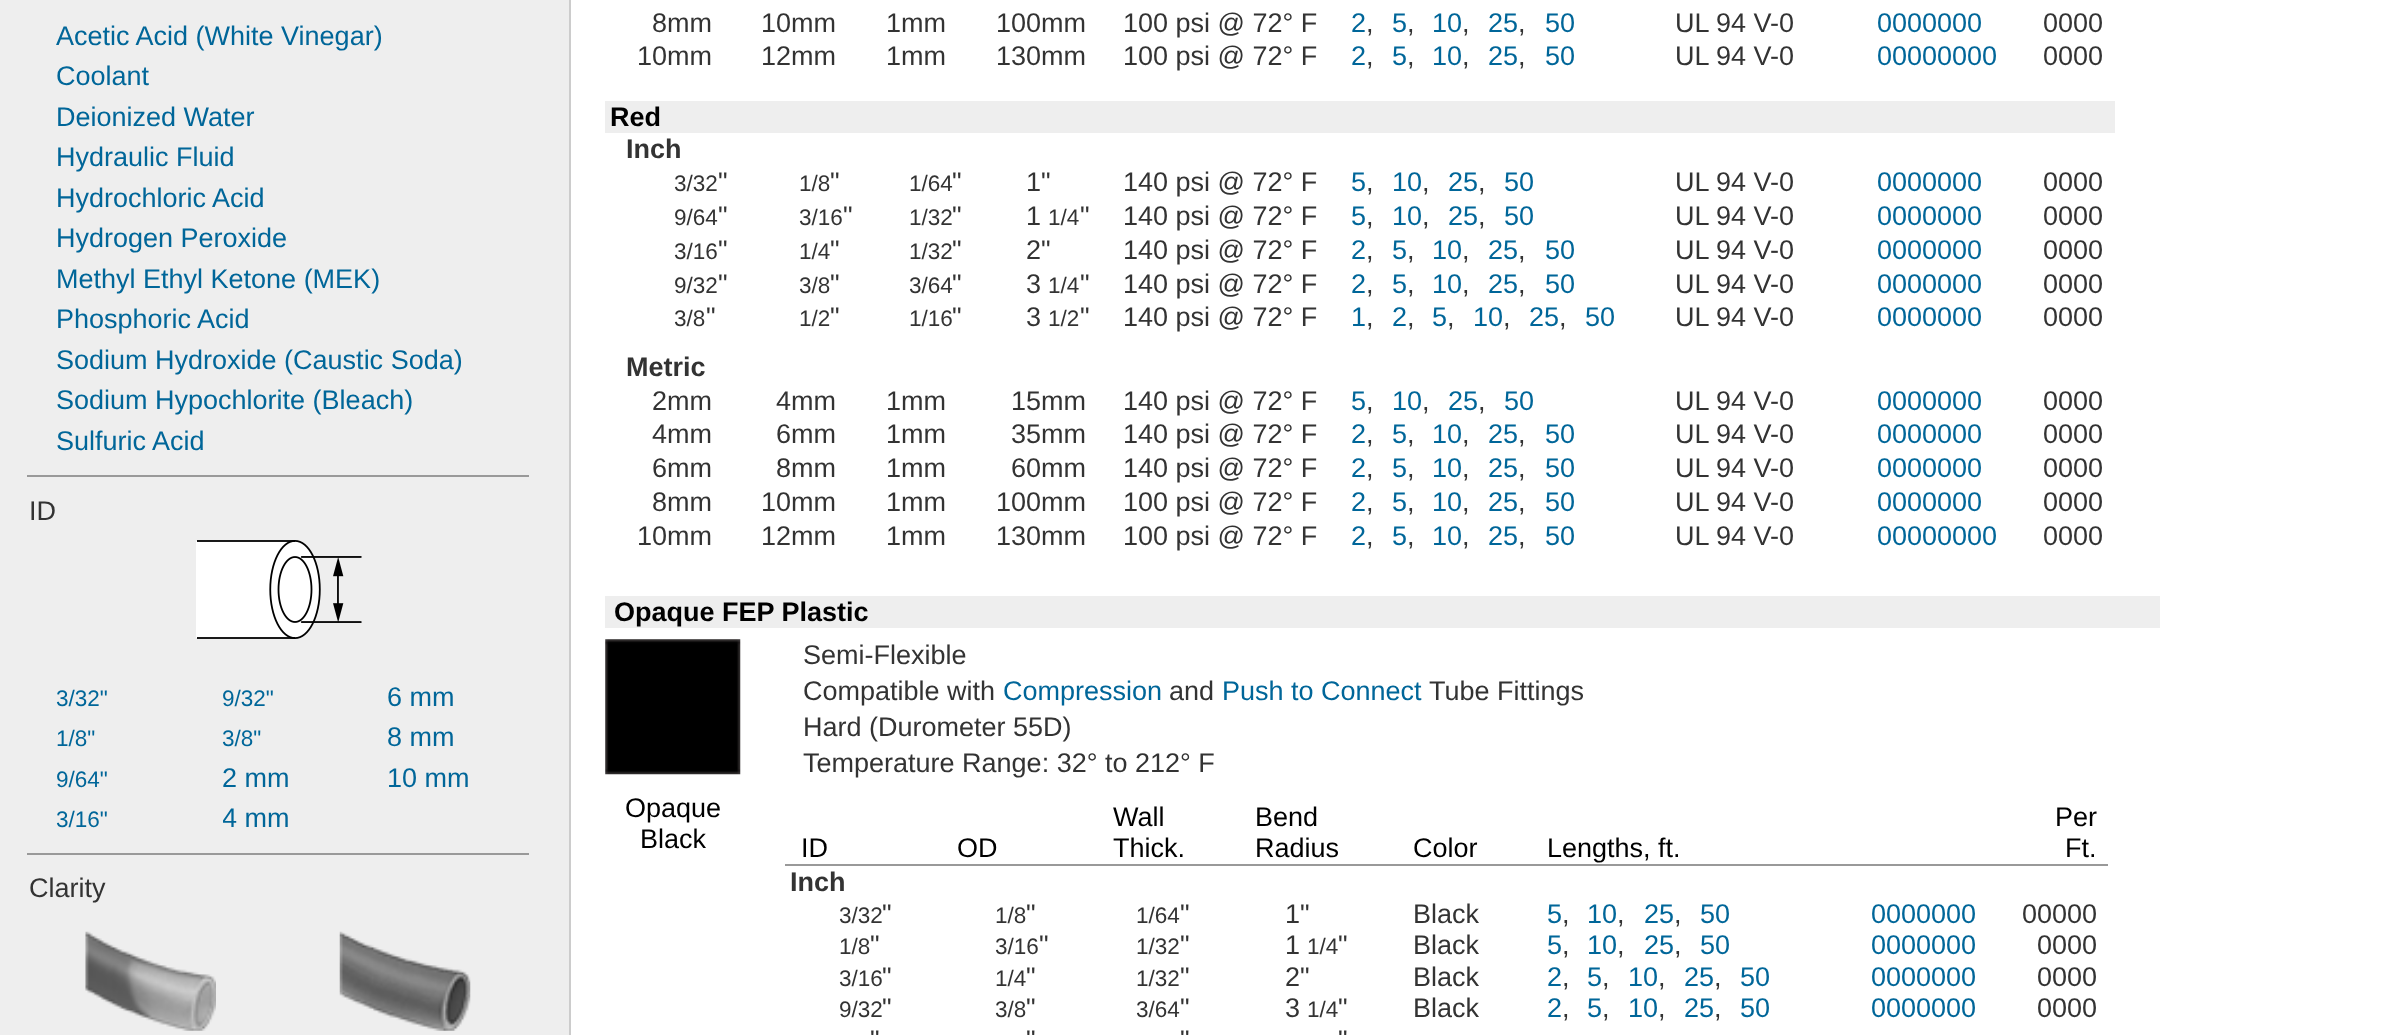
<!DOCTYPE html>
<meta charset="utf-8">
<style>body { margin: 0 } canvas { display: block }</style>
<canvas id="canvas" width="2407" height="1035"></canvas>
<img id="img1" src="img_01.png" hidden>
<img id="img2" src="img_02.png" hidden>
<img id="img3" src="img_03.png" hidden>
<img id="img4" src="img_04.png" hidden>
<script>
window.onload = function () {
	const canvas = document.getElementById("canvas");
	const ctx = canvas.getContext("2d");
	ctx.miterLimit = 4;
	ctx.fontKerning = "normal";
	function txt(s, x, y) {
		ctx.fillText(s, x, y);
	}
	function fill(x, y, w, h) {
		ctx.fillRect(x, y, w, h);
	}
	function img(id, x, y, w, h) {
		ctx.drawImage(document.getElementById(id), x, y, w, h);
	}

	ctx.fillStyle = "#FFFFFF";
	fill(0, 0, 2407, 1035);
	ctx.fillStyle = "#EEEEEE";
	fill(0, 0, 569, 1035);
	ctx.fillStyle = "#CCCCCC";
	fill(569, 0, 2, 1035);
	ctx.fillStyle = "#999999";
	fill(27, 475, 502, 2);
	img("img1", 196, 540, 166, 99);
	fill(27, 853, 502, 2);
	img("img2", 85, 931, 131, 100);
	img("img3", 339, 931, 132, 100);
	ctx.fillStyle = "#EEEEEE";
	fill(605, 101, 1510, 32);
	fill(605, 596, 1555, 32);
	img("img4", 605, 639, 136, 136);
	ctx.fillStyle = "#999999";
	fill(785, 864, 1323, 2);
	ctx.font = "27px Liberation Sans";
	ctx.fillStyle = "#006699";
	txt("Acetic Acid (White Vinegar)", 56, 45);
	txt("Coolant", 56, 85);
	txt("Deionized Water", 56, 126);
	txt("Hydraulic Fluid", 56, 166);
	txt("Hydrochloric Acid", 56, 207);
	txt("Hydrogen Peroxide", 56, 247);
	txt("Methyl Ethyl Ketone (MEK)", 56, 288);
	txt("Phosphoric Acid", 56, 328);
	txt("Sodium Hydroxide (Caustic Soda)", 56, 369);
	txt("Sodium Hypochlorite (Bleach)", 56, 409);
	txt("Sulfuric Acid", 56, 450);
	ctx.fillStyle = "#333333";
	txt("ID", 29, 520);
	ctx.font = "22.5px Liberation Sans";
	ctx.fillStyle = "#006699";
	txt("3/32\"", 56, 706);
	txt("1/8\"", 56, 746);
	txt("9/64\"", 56, 787);
	txt("3/16\"", 56, 827);
	ctx.save();
	ctx.beginPath();
	ctx.rect(223, 682, 137, 31);
	ctx.clip();
	txt("9/32\"", 222, 706);
	ctx.restore();
	txt("3/8\"", 222, 746);
	ctx.font = "27px Liberation Sans";
	txt("2 mm", 222, 787);
	ctx.save();
	ctx.beginPath();
	ctx.rect(223, 803, 137, 32);
	ctx.clip();
	txt("4 mm", 222, 827);
	ctx.restore();
	txt("6 mm", 387, 706);
	txt("8 mm", 387, 746);
	txt("10 mm", 387, 787);
	ctx.fillStyle = "#333333";
	txt("Clarity", 29, 897);
	txt("8mm", 652, 32);
	txt("10mm", 761, 32);
	txt("1mm", 886, 32);
	txt("100mm", 996, 32);
	txt("100 psi @ 72° F", 1123, 32);
	ctx.fillStyle = "#006699";
	txt("2", 1351, 32);
	ctx.fillStyle = "#333333";
	txt(",", 1366, 32);
	ctx.fillStyle = "#006699";
	txt("5", 1392, 32);
	ctx.fillStyle = "#333333";
	txt(",", 1407, 32);
	ctx.fillStyle = "#006699";
	txt("10", 1432, 32);
	ctx.fillStyle = "#333333";
	txt(",", 1462, 32);
	ctx.fillStyle = "#006699";
	txt("25", 1488, 32);
	ctx.fillStyle = "#333333";
	txt(",", 1518, 32);
	ctx.fillStyle = "#006699";
	txt("50", 1545, 32);
	ctx.fillStyle = "#333333";
	txt("UL 94 V-0", 1675, 32);
	ctx.fillStyle = "#006699";
	txt("0000000", 1877, 32);
	ctx.fillStyle = "#333333";
	txt("0000", 2043, 32);
	txt("10mm", 637, 65);
	txt("12mm", 761, 65);
	txt("1mm", 886, 65);
	txt("130mm", 996, 65);
	txt("100 psi @ 72° F", 1123, 65);
	ctx.fillStyle = "#006699";
	txt("2", 1351, 65);
	ctx.fillStyle = "#333333";
	txt(",", 1366, 65);
	ctx.fillStyle = "#006699";
	txt("5", 1392, 65);
	ctx.fillStyle = "#333333";
	txt(",", 1407, 65);
	ctx.fillStyle = "#006699";
	txt("10", 1432, 65);
	ctx.fillStyle = "#333333";
	txt(",", 1462, 65);
	ctx.fillStyle = "#006699";
	txt("25", 1488, 65);
	ctx.fillStyle = "#333333";
	txt(",", 1518, 65);
	ctx.fillStyle = "#006699";
	txt("50", 1545, 65);
	ctx.fillStyle = "#333333";
	txt("UL 94 V-0", 1675, 65);
	ctx.fillStyle = "#006699";
	txt("00000000", 1877, 65);
	ctx.fillStyle = "#333333";
	txt("0000", 2043, 65);
	ctx.font = "bold 27px Liberation Sans";
	ctx.fillStyle = "#000000";
	txt("Red", 610, 126);
	ctx.fillStyle = "#333333";
	txt("Inch", 626, 158);
	ctx.font = "22.5px Liberation Sans";
	txt("3/32", 674, 191);
	ctx.font = "27px Liberation Sans";
	txt("\"", 718, 191);
	ctx.font = "22.5px Liberation Sans";
	txt("1/8", 799, 191);
	ctx.font = "27px Liberation Sans";
	txt("\"", 830, 191);
	ctx.font = "22.5px Liberation Sans";
	txt("1/64", 909, 191);
	ctx.font = "27px Liberation Sans";
	txt("\"", 952, 191);
	txt("1\"", 1026, 191);
	txt("140 psi @ 72° F", 1123, 191);
	ctx.fillStyle = "#006699";
	txt("5", 1351, 191);
	ctx.fillStyle = "#333333";
	txt(",", 1366, 191);
	ctx.fillStyle = "#006699";
	txt("10", 1392, 191);
	ctx.fillStyle = "#333333";
	txt(",", 1422, 191);
	ctx.fillStyle = "#006699";
	txt("25", 1448, 191);
	ctx.fillStyle = "#333333";
	txt(",", 1478, 191);
	ctx.fillStyle = "#006699";
	txt("50", 1504, 191);
	ctx.fillStyle = "#333333";
	txt("UL 94 V-0", 1675, 191);
	ctx.fillStyle = "#006699";
	txt("0000000", 1877, 191);
	ctx.fillStyle = "#333333";
	txt("0000", 2043, 191);
	ctx.font = "22.5px Liberation Sans";
	txt("9/64", 674, 225);
	ctx.font = "27px Liberation Sans";
	txt("\"", 718, 225);
	ctx.font = "22.5px Liberation Sans";
	txt("3/16", 799, 225);
	ctx.font = "27px Liberation Sans";
	txt("\"", 843, 225);
	ctx.font = "22.5px Liberation Sans";
	txt("1/32", 909, 225);
	ctx.font = "27px Liberation Sans";
	txt("\"", 952, 225);
	txt("1", 1026, 225);
	ctx.font = "22.5px Liberation Sans";
	txt("1/4", 1048, 225);
	ctx.font = "27px Liberation Sans";
	txt("\"", 1080, 225);
	txt("140 psi @ 72° F", 1123, 225);
	ctx.fillStyle = "#006699";
	txt("5", 1351, 225);
	ctx.fillStyle = "#333333";
	txt(",", 1366, 225);
	ctx.fillStyle = "#006699";
	txt("10", 1392, 225);
	ctx.fillStyle = "#333333";
	txt(",", 1422, 225);
	ctx.fillStyle = "#006699";
	txt("25", 1448, 225);
	ctx.fillStyle = "#333333";
	txt(",", 1478, 225);
	ctx.fillStyle = "#006699";
	txt("50", 1504, 225);
	ctx.fillStyle = "#333333";
	txt("UL 94 V-0", 1675, 225);
	ctx.fillStyle = "#006699";
	txt("0000000", 1877, 225);
	ctx.fillStyle = "#333333";
	txt("0000", 2043, 225);
	ctx.font = "22.5px Liberation Sans";
	txt("3/16", 674, 259);
	ctx.font = "27px Liberation Sans";
	txt("\"", 718, 259);
	ctx.font = "22.5px Liberation Sans";
	txt("1/4", 799, 259);
	ctx.font = "27px Liberation Sans";
	txt("\"", 830, 259);
	ctx.font = "22.5px Liberation Sans";
	txt("1/32", 909, 259);
	ctx.font = "27px Liberation Sans";
	txt("\"", 952, 259);
	txt("2\"", 1026, 259);
	txt("140 psi @ 72° F", 1123, 259);
	ctx.fillStyle = "#006699";
	txt("2", 1351, 259);
	ctx.fillStyle = "#333333";
	txt(",", 1366, 259);
	ctx.fillStyle = "#006699";
	txt("5", 1392, 259);
	ctx.fillStyle = "#333333";
	txt(",", 1407, 259);
	ctx.fillStyle = "#006699";
	txt("10", 1432, 259);
	ctx.fillStyle = "#333333";
	txt(",", 1462, 259);
	ctx.fillStyle = "#006699";
	txt("25", 1488, 259);
	ctx.fillStyle = "#333333";
	txt(",", 1518, 259);
	ctx.fillStyle = "#006699";
	txt("50", 1545, 259);
	ctx.fillStyle = "#333333";
	txt("UL 94 V-0", 1675, 259);
	ctx.fillStyle = "#006699";
	txt("0000000", 1877, 259);
	ctx.fillStyle = "#333333";
	txt("0000", 2043, 259);
	ctx.font = "22.5px Liberation Sans";
	txt("9/32", 674, 293);
	ctx.font = "27px Liberation Sans";
	txt("\"", 718, 293);
	ctx.font = "22.5px Liberation Sans";
	txt("3/8", 799, 293);
	ctx.font = "27px Liberation Sans";
	txt("\"", 830, 293);
	ctx.font = "22.5px Liberation Sans";
	txt("3/64", 909, 293);
	ctx.font = "27px Liberation Sans";
	txt("\"", 952, 293);
	txt("3", 1026, 293);
	ctx.font = "22.5px Liberation Sans";
	txt("1/4", 1048, 293);
	ctx.font = "27px Liberation Sans";
	txt("\"", 1080, 293);
	txt("140 psi @ 72° F", 1123, 293);
	ctx.fillStyle = "#006699";
	txt("2", 1351, 293);
	ctx.fillStyle = "#333333";
	txt(",", 1366, 293);
	ctx.fillStyle = "#006699";
	txt("5", 1392, 293);
	ctx.fillStyle = "#333333";
	txt(",", 1407, 293);
	ctx.fillStyle = "#006699";
	txt("10", 1432, 293);
	ctx.fillStyle = "#333333";
	txt(",", 1462, 293);
	ctx.fillStyle = "#006699";
	txt("25", 1488, 293);
	ctx.fillStyle = "#333333";
	txt(",", 1518, 293);
	ctx.fillStyle = "#006699";
	txt("50", 1545, 293);
	ctx.fillStyle = "#333333";
	txt("UL 94 V-0", 1675, 293);
	ctx.fillStyle = "#006699";
	txt("0000000", 1877, 293);
	ctx.fillStyle = "#333333";
	txt("0000", 2043, 293);
	ctx.font = "22.5px Liberation Sans";
	txt("3/8", 674, 326);
	ctx.font = "27px Liberation Sans";
	txt("\"", 706, 326);
	ctx.font = "22.5px Liberation Sans";
	txt("1/2", 799, 326);
	ctx.font = "27px Liberation Sans";
	txt("\"", 830, 326);
	ctx.font = "22.5px Liberation Sans";
	txt("1/16", 909, 326);
	ctx.font = "27px Liberation Sans";
	txt("\"", 952, 326);
	txt("3", 1026, 326);
	ctx.font = "22.5px Liberation Sans";
	txt("1/2", 1048, 326);
	ctx.font = "27px Liberation Sans";
	txt("\"", 1080, 326);
	txt("140 psi @ 72° F", 1123, 326);
	ctx.fillStyle = "#006699";
	txt("1", 1351, 326);
	ctx.fillStyle = "#333333";
	txt(",", 1366, 326);
	ctx.fillStyle = "#006699";
	txt("2", 1392, 326);
	ctx.fillStyle = "#333333";
	txt(",", 1407, 326);
	ctx.fillStyle = "#006699";
	txt("5", 1432, 326);
	ctx.fillStyle = "#333333";
	txt(",", 1447, 326);
	ctx.fillStyle = "#006699";
	txt("10", 1473, 326);
	ctx.fillStyle = "#333333";
	txt(",", 1503, 326);
	ctx.fillStyle = "#006699";
	txt("25", 1529, 326);
	ctx.fillStyle = "#333333";
	txt(",", 1559, 326);
	ctx.fillStyle = "#006699";
	txt("50", 1585, 326);
	ctx.fillStyle = "#333333";
	txt("UL 94 V-0", 1675, 326);
	ctx.fillStyle = "#006699";
	txt("0000000", 1877, 326);
	ctx.fillStyle = "#333333";
	txt("0000", 2043, 326);
	ctx.font = "bold 27px Liberation Sans";
	txt("Metric", 626, 376);
	ctx.font = "27px Liberation Sans";
	txt("2mm", 652, 410);
	txt("4mm", 776, 410);
	txt("1mm", 886, 410);
	txt("15mm", 1011, 410);
	txt("140 psi @ 72° F", 1123, 410);
	ctx.fillStyle = "#006699";
	txt("5", 1351, 410);
	ctx.fillStyle = "#333333";
	txt(",", 1366, 410);
	ctx.fillStyle = "#006699";
	txt("10", 1392, 410);
	ctx.fillStyle = "#333333";
	txt(",", 1422, 410);
	ctx.fillStyle = "#006699";
	txt("25", 1448, 410);
	ctx.fillStyle = "#333333";
	txt(",", 1478, 410);
	ctx.fillStyle = "#006699";
	txt("50", 1504, 410);
	ctx.fillStyle = "#333333";
	txt("UL 94 V-0", 1675, 410);
	ctx.fillStyle = "#006699";
	txt("0000000", 1877, 410);
	ctx.fillStyle = "#333333";
	txt("0000", 2043, 410);
	txt("4mm", 652, 443);
	txt("6mm", 776, 443);
	txt("1mm", 886, 443);
	txt("35mm", 1011, 443);
	txt("140 psi @ 72° F", 1123, 443);
	ctx.fillStyle = "#006699";
	txt("2", 1351, 443);
	ctx.fillStyle = "#333333";
	txt(",", 1366, 443);
	ctx.fillStyle = "#006699";
	txt("5", 1392, 443);
	ctx.fillStyle = "#333333";
	txt(",", 1407, 443);
	ctx.fillStyle = "#006699";
	txt("10", 1432, 443);
	ctx.fillStyle = "#333333";
	txt(",", 1462, 443);
	ctx.fillStyle = "#006699";
	txt("25", 1488, 443);
	ctx.fillStyle = "#333333";
	txt(",", 1518, 443);
	ctx.fillStyle = "#006699";
	txt("50", 1545, 443);
	ctx.fillStyle = "#333333";
	txt("UL 94 V-0", 1675, 443);
	ctx.fillStyle = "#006699";
	txt("0000000", 1877, 443);
	ctx.fillStyle = "#333333";
	txt("0000", 2043, 443);
	txt("6mm", 652, 477);
	txt("8mm", 776, 477);
	txt("1mm", 886, 477);
	txt("60mm", 1011, 477);
	txt("140 psi @ 72° F", 1123, 477);
	ctx.fillStyle = "#006699";
	txt("2", 1351, 477);
	ctx.fillStyle = "#333333";
	txt(",", 1366, 477);
	ctx.fillStyle = "#006699";
	txt("5", 1392, 477);
	ctx.fillStyle = "#333333";
	txt(",", 1407, 477);
	ctx.fillStyle = "#006699";
	txt("10", 1432, 477);
	ctx.fillStyle = "#333333";
	txt(",", 1462, 477);
	ctx.fillStyle = "#006699";
	txt("25", 1488, 477);
	ctx.fillStyle = "#333333";
	txt(",", 1518, 477);
	ctx.fillStyle = "#006699";
	txt("50", 1545, 477);
	ctx.fillStyle = "#333333";
	txt("UL 94 V-0", 1675, 477);
	ctx.fillStyle = "#006699";
	txt("0000000", 1877, 477);
	ctx.fillStyle = "#333333";
	txt("0000", 2043, 477);
	txt("8mm", 652, 511);
	txt("10mm", 761, 511);
	txt("1mm", 886, 511);
	txt("100mm", 996, 511);
	txt("100 psi @ 72° F", 1123, 511);
	ctx.fillStyle = "#006699";
	txt("2", 1351, 511);
	ctx.fillStyle = "#333333";
	txt(",", 1366, 511);
	ctx.fillStyle = "#006699";
	txt("5", 1392, 511);
	ctx.fillStyle = "#333333";
	txt(",", 1407, 511);
	ctx.fillStyle = "#006699";
	txt("10", 1432, 511);
	ctx.fillStyle = "#333333";
	txt(",", 1462, 511);
	ctx.fillStyle = "#006699";
	txt("25", 1488, 511);
	ctx.fillStyle = "#333333";
	txt(",", 1518, 511);
	ctx.fillStyle = "#006699";
	txt("50", 1545, 511);
	ctx.fillStyle = "#333333";
	txt("UL 94 V-0", 1675, 511);
	ctx.fillStyle = "#006699";
	txt("0000000", 1877, 511);
	ctx.fillStyle = "#333333";
	txt("0000", 2043, 511);
	txt("10mm", 637, 545);
	txt("12mm", 761, 545);
	txt("1mm", 886, 545);
	txt("130mm", 996, 545);
	txt("100 psi @ 72° F", 1123, 545);
	ctx.fillStyle = "#006699";
	txt("2", 1351, 545);
	ctx.fillStyle = "#333333";
	txt(",", 1366, 545);
	ctx.fillStyle = "#006699";
	txt("5", 1392, 545);
	ctx.fillStyle = "#333333";
	txt(",", 1407, 545);
	ctx.fillStyle = "#006699";
	txt("10", 1432, 545);
	ctx.fillStyle = "#333333";
	txt(",", 1462, 545);
	ctx.fillStyle = "#006699";
	txt("25", 1488, 545);
	ctx.fillStyle = "#333333";
	txt(",", 1518, 545);
	ctx.fillStyle = "#006699";
	txt("50", 1545, 545);
	ctx.fillStyle = "#333333";
	txt("UL 94 V-0", 1675, 545);
	ctx.fillStyle = "#006699";
	txt("00000000", 1877, 545);
	ctx.fillStyle = "#333333";
	txt("0000", 2043, 545);
	ctx.font = "bold 27px Liberation Sans";
	ctx.fillStyle = "#000000";
	txt("Opaque FEP Plastic", 614, 621);
	ctx.font = "27px Liberation Sans";
	txt("Opaque", 625, 817);
	txt("Black", 640, 848);
	ctx.fillStyle = "#333333";
	txt("Semi-Flexible", 803, 664);
	txt("Compatible with", 803, 700);
	ctx.fillStyle = "#006699";
	txt("Compression", 1003, 700);
	ctx.fillStyle = "#333333";
	txt("and", 1169, 700);
	ctx.fillStyle = "#006699";
	txt("Push to Connect", 1222, 700);
	ctx.fillStyle = "#333333";
	txt("Tube Fittings", 1429, 700);
	txt("Hard (Durometer 55D)", 803, 736);
	txt("Temperature Range: 32° to 212° F", 803, 772);
	ctx.fillStyle = "#000000";
	txt("ID", 801, 857);
	txt("OD", 957, 857);
	txt("Wall", 1113, 826);
	txt("Thick.", 1113, 857);
	txt("Bend", 1255, 826);
	txt("Radius", 1255, 857);
	txt("Color", 1413, 857);
	txt("Lengths, ft.", 1547, 857);
	txt("Per", 2055, 826);
	txt("Ft.", 2065, 857);
	ctx.font = "bold 27px Liberation Sans";
	ctx.fillStyle = "#333333";
	txt("Inch", 790, 891);
	ctx.font = "22.5px Liberation Sans";
	txt("3/32", 839, 923);
	ctx.font = "27px Liberation Sans";
	txt("\"", 882, 923);
	ctx.font = "22.5px Liberation Sans";
	txt("1/8", 995, 923);
	ctx.font = "27px Liberation Sans";
	txt("\"", 1026, 923);
	ctx.font = "22.5px Liberation Sans";
	txt("1/64", 1136, 923);
	ctx.font = "27px Liberation Sans";
	txt("\"", 1180, 923);
	txt("1\"", 1285, 923);
	txt("Black", 1413, 923);
	ctx.fillStyle = "#006699";
	txt("5", 1547, 923);
	ctx.fillStyle = "#333333";
	txt(",", 1562, 923);
	ctx.fillStyle = "#006699";
	txt("10", 1587, 923);
	ctx.fillStyle = "#333333";
	txt(",", 1617, 923);
	ctx.fillStyle = "#006699";
	txt("25", 1644, 923);
	ctx.fillStyle = "#333333";
	txt(",", 1674, 923);
	ctx.fillStyle = "#006699";
	txt("50", 1700, 923);
	txt("0000000", 1871, 923);
	ctx.fillStyle = "#333333";
	txt("00000", 2022, 923);
	ctx.font = "22.5px Liberation Sans";
	txt("1/8", 839, 954);
	ctx.font = "27px Liberation Sans";
	txt("\"", 870, 954);
	ctx.font = "22.5px Liberation Sans";
	txt("3/16", 995, 954);
	ctx.font = "27px Liberation Sans";
	txt("\"", 1039, 954);
	ctx.font = "22.5px Liberation Sans";
	txt("1/32", 1136, 954);
	ctx.font = "27px Liberation Sans";
	txt("\"", 1180, 954);
	txt("1", 1285, 954);
	ctx.font = "22.5px Liberation Sans";
	txt("1/4", 1307, 954);
	ctx.font = "27px Liberation Sans";
	txt("\"", 1338, 954);
	txt("Black", 1413, 954);
	ctx.fillStyle = "#006699";
	txt("5", 1547, 954);
	ctx.fillStyle = "#333333";
	txt(",", 1562, 954);
	ctx.fillStyle = "#006699";
	txt("10", 1587, 954);
	ctx.fillStyle = "#333333";
	txt(",", 1617, 954);
	ctx.fillStyle = "#006699";
	txt("25", 1644, 954);
	ctx.fillStyle = "#333333";
	txt(",", 1674, 954);
	ctx.fillStyle = "#006699";
	txt("50", 1700, 954);
	txt("0000000", 1871, 954);
	ctx.fillStyle = "#333333";
	txt("0000", 2037, 954);
	ctx.font = "22.5px Liberation Sans";
	txt("3/16", 839, 986);
	ctx.font = "27px Liberation Sans";
	txt("\"", 882, 986);
	ctx.font = "22.5px Liberation Sans";
	txt("1/4", 995, 986);
	ctx.font = "27px Liberation Sans";
	txt("\"", 1026, 986);
	ctx.font = "22.5px Liberation Sans";
	txt("1/32", 1136, 986);
	ctx.font = "27px Liberation Sans";
	txt("\"", 1180, 986);
	txt("2\"", 1285, 986);
	txt("Black", 1413, 986);
	ctx.fillStyle = "#006699";
	txt("2", 1547, 986);
	ctx.fillStyle = "#333333";
	txt(",", 1562, 986);
	ctx.fillStyle = "#006699";
	txt("5", 1587, 986);
	ctx.fillStyle = "#333333";
	txt(",", 1602, 986);
	ctx.fillStyle = "#006699";
	txt("10", 1628, 986);
	ctx.fillStyle = "#333333";
	txt(",", 1658, 986);
	ctx.fillStyle = "#006699";
	txt("25", 1684, 986);
	ctx.fillStyle = "#333333";
	txt(",", 1714, 986);
	ctx.fillStyle = "#006699";
	txt("50", 1740, 986);
	txt("0000000", 1871, 986);
	ctx.fillStyle = "#333333";
	txt("0000", 2037, 986);
	ctx.font = "22.5px Liberation Sans";
	txt("9/32", 839, 1017);
	ctx.font = "27px Liberation Sans";
	txt("\"", 882, 1017);
	ctx.font = "22.5px Liberation Sans";
	txt("3/8", 995, 1017);
	ctx.font = "27px Liberation Sans";
	txt("\"", 1026, 1017);
	ctx.font = "22.5px Liberation Sans";
	txt("3/64", 1136, 1017);
	ctx.font = "27px Liberation Sans";
	txt("\"", 1180, 1017);
	txt("3", 1285, 1017);
	ctx.font = "22.5px Liberation Sans";
	txt("1/4", 1307, 1017);
	ctx.font = "27px Liberation Sans";
	txt("\"", 1338, 1017);
	txt("Black", 1413, 1017);
	ctx.fillStyle = "#006699";
	txt("2", 1547, 1017);
	ctx.fillStyle = "#333333";
	txt(",", 1562, 1017);
	ctx.fillStyle = "#006699";
	txt("5", 1587, 1017);
	ctx.fillStyle = "#333333";
	txt(",", 1602, 1017);
	ctx.fillStyle = "#006699";
	txt("10", 1628, 1017);
	ctx.fillStyle = "#333333";
	txt(",", 1658, 1017);
	ctx.fillStyle = "#006699";
	txt("25", 1684, 1017);
	ctx.fillStyle = "#333333";
	txt(",", 1714, 1017);
	ctx.fillStyle = "#006699";
	txt("50", 1740, 1017);
	txt("0000000", 1871, 1017);
	ctx.fillStyle = "#333333";
	txt("0000", 2037, 1017);
	txt("\"", 870, 1049);
	txt("\"", 1026, 1049);
	txt("\"", 1180, 1049);
	txt("\"", 1338, 1049);
};
</script>
